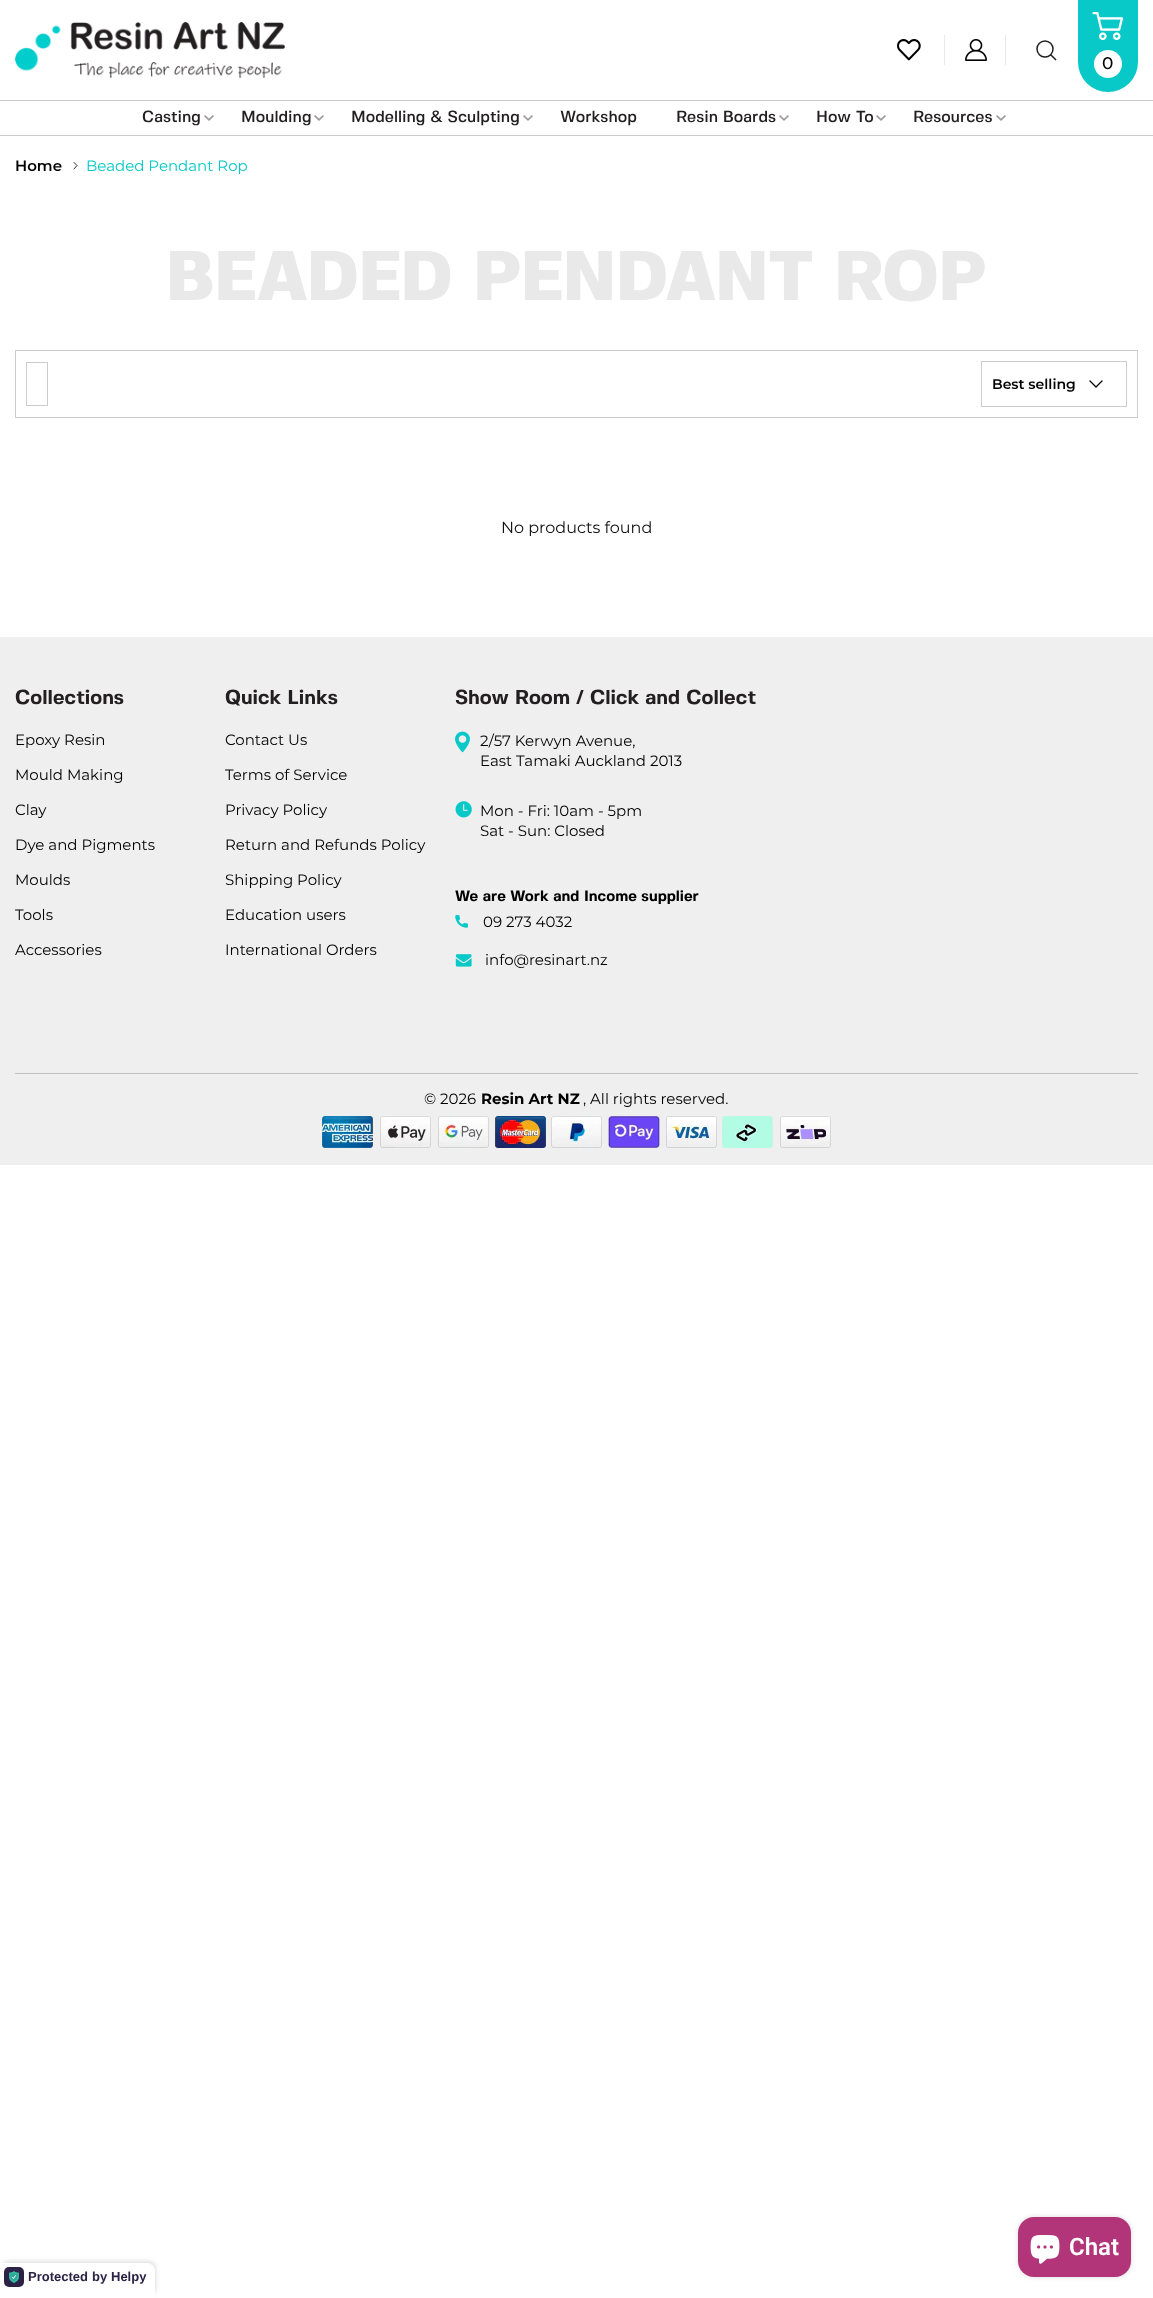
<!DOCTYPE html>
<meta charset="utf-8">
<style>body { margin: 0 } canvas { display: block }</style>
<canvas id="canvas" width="1153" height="2298"></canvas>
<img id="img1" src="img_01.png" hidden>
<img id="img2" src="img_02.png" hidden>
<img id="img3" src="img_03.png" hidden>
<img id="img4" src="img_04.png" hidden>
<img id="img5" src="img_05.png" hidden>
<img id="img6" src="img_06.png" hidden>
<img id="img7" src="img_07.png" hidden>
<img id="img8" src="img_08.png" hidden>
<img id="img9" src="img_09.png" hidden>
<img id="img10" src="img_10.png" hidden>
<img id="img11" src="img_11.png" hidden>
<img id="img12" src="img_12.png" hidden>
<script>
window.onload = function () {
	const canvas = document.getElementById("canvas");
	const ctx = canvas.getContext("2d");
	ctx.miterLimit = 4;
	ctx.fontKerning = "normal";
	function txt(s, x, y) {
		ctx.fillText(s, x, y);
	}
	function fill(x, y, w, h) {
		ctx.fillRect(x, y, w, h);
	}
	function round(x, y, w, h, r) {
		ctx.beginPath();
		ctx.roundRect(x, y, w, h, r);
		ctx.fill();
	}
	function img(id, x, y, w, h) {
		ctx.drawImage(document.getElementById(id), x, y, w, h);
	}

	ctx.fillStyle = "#FFFFFF";
	fill(0, 0, 1153, 2298);
	img("img1", 15, 22, 270, 56);
	ctx.fillStyle = "#E9E8E8";
	fill(944, 35, 1, 30);
	img("img2", 897, 39, 24, 22);
	img("img3", 965, 39, 22, 22);
	fill(1005, 35, 1, 30);
	ctx.beginPath();
	ctx.arc(1045, 49, 8, 0, Math.PI * 2);
	ctx.strokeStyle = "#231F20";
	ctx.lineWidth = 1.5;
	ctx.stroke();
	ctx.beginPath();
	ctx.moveTo(1051, 55);
	ctx.lineTo(1055.5, 59.5);
	ctx.lineCap = "square";
	ctx.stroke();
	ctx.fillStyle = "#08C8C8";
	ctx.beginPath();
	ctx.roundRect(1078, 0, 60, 92, [0, 0, 30, 30]);
	ctx.fill();
	img("img4", 1092, 12, 32, 28);
	ctx.fillStyle = "#FFFFFF";
	ctx.beginPath();
	ctx.arc(1108, 64, 14, 0, Math.PI * 2);
	ctx.fill();
	ctx.fillStyle = "#CCCCCC";
	fill(0, 100, 1153, 1);
	fill(0, 135, 1153, 1);
	img("img5", 204, 115, 10, 6);
	img("img5", 314, 115, 10, 6);
	img("img5", 523, 115, 10, 6);
	img("img5", 779, 115, 10, 6);
	img("img5", 876, 115, 10, 6);
	img("img5", 996, 115, 10, 6);
	ctx.beginPath();
	ctx.moveTo(74, 169);
	ctx.lineTo(77, 165.5);
	ctx.lineTo(74, 162.5);
	ctx.strokeStyle = "#000000";
	ctx.lineWidth = 0.8;
	ctx.lineCap = "round";
	ctx.lineJoin = "round";
	ctx.stroke();
	ctx.strokeStyle = "#CCCCCC";
	ctx.lineWidth = 1;
	ctx.lineJoin = "miter";
	ctx.strokeRect(15.5, 350.5, 1122, 67);
	ctx.strokeRect(26.5, 362.5, 21, 43);
	ctx.strokeRect(981.5, 361.5, 145, 45);
	ctx.beginPath();
	ctx.moveTo(1090, 381);
	ctx.lineTo(1096, 387);
	ctx.lineTo(1102, 381);
	ctx.strokeStyle = "#000000";
	ctx.lineWidth = 1.3;
	ctx.lineJoin = "round";
	ctx.stroke();
	ctx.fillStyle = "#EFEFEF";
	fill(0, 637, 1153, 528);
	ctx.fillStyle = "#BFBFBF";
	fill(15, 1073, 1123, 1);
	img("img6", 455, 731, 15, 22);
	img("img7", 455, 801, 17, 17);
	img("img8", 455, 915, 13, 13);
	img("img9", 455, 954, 17, 13);
	img("img10", 322, 1116, 509, 32);
	ctx.fillStyle = "rgba(0, 0, 0, 0.15)";
	ctx.filter = "blur(2.5px)";
	ctx.beginPath();
	ctx.roundRect(1018, 2217, 113, 60, 16);
	ctx.fill();
	ctx.filter = "none";
	ctx.fillStyle = "#B33579";
	round(1018, 2217, 113, 60, 16);
	img("img11", 1030, 2235, 30, 29);
	ctx.fillStyle = "rgba(64, 60, 67, 0.16)";
	ctx.filter = "blur(2px)";
	ctx.beginPath();
	ctx.roundRect(1, 2261, 155, 35, 8);
	ctx.fill();
	ctx.filter = "none";
	ctx.fillStyle = "#FFFFFF";
	ctx.beginPath();
	ctx.roundRect(0, 2263, 155, 35, [0, 8, 0, 0]);
	ctx.fill();
	ctx.fillStyle = "#2C2245";
	round(4, 2267, 20, 20, 5);
	img("img12", 9, 2271, 10, 12);
	ctx.font = "500 17px Montserrat";
	ctx.fillStyle = "#000000";
	txt("0", 1102, 69);
	ctx.font = "500 16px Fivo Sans";
	ctx.fillStyle = "#231F20";
	txt("Casting", 142, 122);
	txt("Moulding", 241, 122);
	txt("Modelling & Sculpting", 351, 122);
	txt("Workshop", 560, 122);
	txt("Resin Boards", 676, 122);
	txt("How To", 816, 122);
	txt("Resources", 913, 122);
	ctx.font = "600 15px Montserrat";
	ctx.fillStyle = "#000000";
	txt("Home", 15, 171);
	ctx.font = "15px Montserrat";
	ctx.fillStyle = "#08C8C8";
	txt("Beaded Pendant Rop", 86, 171);
	ctx.font = "900 70px Fivo Sans";
	ctx.fillStyle = "#E9E9E9";
	txt("BEADED PENDANT ROP", 166, 300);
	ctx.font = "600 14px Montserrat";
	ctx.fillStyle = "#000000";
	txt("Best selling", 992, 389);
	ctx.font = "16px Montserrat";
	ctx.fillStyle = "#111111";
	txt("No products found", 501, 533);
	ctx.font = "bold 20px Fivo Sans";
	ctx.fillStyle = "#231F20";
	txt("Collections", 15, 704);
	ctx.font = "15px Montserrat";
	ctx.fillStyle = "#000000";
	txt("Epoxy Resin", 15, 745);
	txt("Mould Making", 15, 780);
	txt("Clay", 15, 815);
	txt("Dye and Pigments", 15, 850);
	txt("Moulds", 15, 885);
	txt("Tools", 15, 920);
	txt("Accessories", 15, 955);
	ctx.font = "bold 20px Fivo Sans";
	ctx.fillStyle = "#231F20";
	txt("Quick Links", 225, 704);
	ctx.font = "15px Montserrat";
	ctx.fillStyle = "#000000";
	txt("Contact Us", 225, 745);
	txt("Terms of Service", 225, 780);
	txt("Privacy Policy", 225, 815);
	txt("Return and Refunds Policy", 225, 850);
	txt("Shipping Policy", 225, 885);
	txt("Education users", 225, 920);
	txt("International Orders", 225, 955);
	ctx.font = "bold 20px Fivo Sans";
	ctx.fillStyle = "#231F20";
	txt("Show Room / Click and Collect", 455, 704);
	ctx.font = "15px Montserrat";
	ctx.fillStyle = "#000000";
	txt("2/57 Kerwyn Avenue,", 480, 746);
	txt("East Tamaki Auckland 2013", 480, 766);
	txt("Mon - Fri: 10am - 5pm", 480, 816);
	txt("Sat - Sun: Closed", 480, 836);
	ctx.font = "bold 15px Fivo Sans";
	txt("We are Work and Income supplier", 455, 901);
	ctx.font = "15px Montserrat";
	txt("09 273 4032", 483, 927);
	txt("info@resinart.nz", 485, 965);
	txt("© 2026", 424, 1104);
	ctx.font = "bold 15px Montserrat";
	txt("Resin Art NZ", 481, 1104);
	ctx.font = "15px Montserrat";
	txt(", All rights reserved.", 583, 1104);
	ctx.font = "600 24px Roboto";
	ctx.fillStyle = "#FFFFFF";
	txt("Chat", 1069, 2255);
	ctx.font = "bold 13px Liberation Sans";
	ctx.fillStyle = "#2C2245";
	txt("Protected", 28, 2281);
	txt("by", 92, 2281);
	txt("Helpy", 111, 2281);
};
</script>
